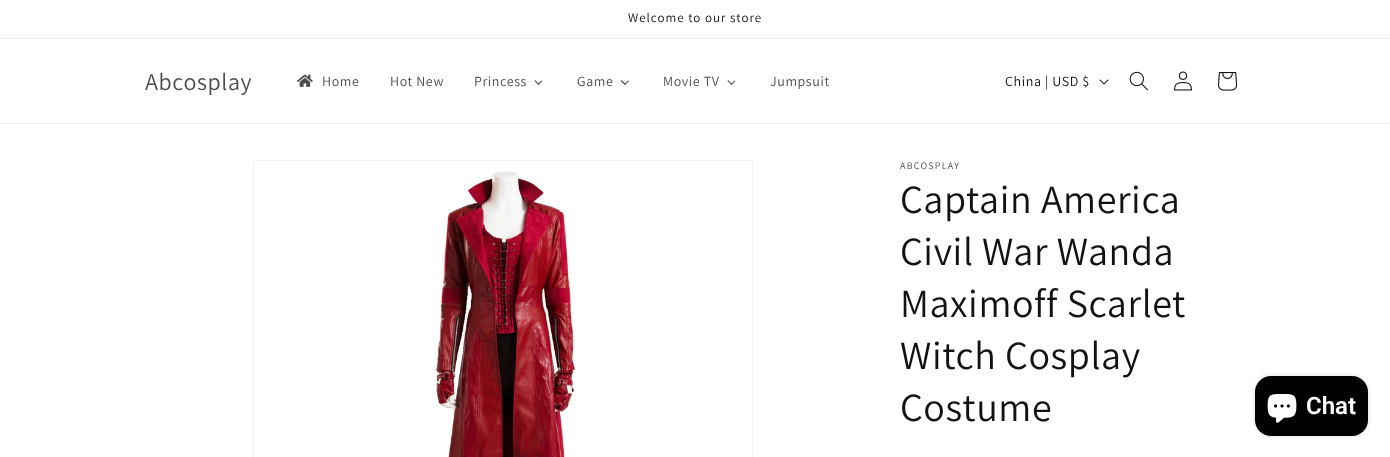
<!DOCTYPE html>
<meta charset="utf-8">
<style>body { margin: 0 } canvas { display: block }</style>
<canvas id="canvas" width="1390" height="457"></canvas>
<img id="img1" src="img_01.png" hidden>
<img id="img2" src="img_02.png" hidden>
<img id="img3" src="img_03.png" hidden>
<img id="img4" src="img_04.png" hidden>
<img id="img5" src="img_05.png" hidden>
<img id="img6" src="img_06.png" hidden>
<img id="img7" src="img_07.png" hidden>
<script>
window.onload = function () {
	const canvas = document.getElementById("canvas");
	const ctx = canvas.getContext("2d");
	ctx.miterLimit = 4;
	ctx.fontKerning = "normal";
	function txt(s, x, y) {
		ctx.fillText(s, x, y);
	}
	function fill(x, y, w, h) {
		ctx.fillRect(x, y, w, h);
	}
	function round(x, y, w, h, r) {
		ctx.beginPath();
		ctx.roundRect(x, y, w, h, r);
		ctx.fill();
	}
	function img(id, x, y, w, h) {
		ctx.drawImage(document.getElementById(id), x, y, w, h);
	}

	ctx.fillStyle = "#FFFFFF";
	fill(0, 0, 1390, 457);
	ctx.fillStyle = "#ECECEC";
	fill(0, 38, 1390, 1);
	fill(0, 123, 1390, 1);
	img("img1", 297, 74, 16, 13);
	ctx.fillStyle = "#4D4D4D";
	ctx.beginPath();
	ctx.moveTo(541.5, 80.5);
	ctx.lineTo(542.5, 81);
	ctx.lineTo(538.5, 85);
	ctx.lineTo(538, 84);
	ctx.closePath();
	ctx.fill();
	ctx.fillStyle = "rgba(18, 18, 18, 0.75)";
	ctx.beginPath();
	ctx.moveTo(535, 80);
	ctx.lineTo(539, 84);
	ctx.lineTo(538.5, 85);
	ctx.lineTo(534.5, 81);
	ctx.closePath();
	ctx.fill();
	ctx.fillStyle = "#4D4D4D";
	ctx.beginPath();
	ctx.moveTo(628, 80.5);
	ctx.lineTo(629, 81);
	ctx.lineTo(625, 85);
	ctx.lineTo(624.5, 84);
	ctx.closePath();
	ctx.fill();
	ctx.fillStyle = "rgba(18, 18, 18, 0.75)";
	ctx.beginPath();
	ctx.moveTo(621.5, 80);
	ctx.lineTo(625.5, 84);
	ctx.lineTo(625, 85);
	ctx.lineTo(620.5, 81);
	ctx.closePath();
	ctx.fill();
	ctx.fillStyle = "#4D4D4D";
	ctx.beginPath();
	ctx.moveTo(734.5, 80.5);
	ctx.lineTo(735.5, 81);
	ctx.lineTo(731.5, 85);
	ctx.lineTo(731, 84);
	ctx.closePath();
	ctx.fill();
	ctx.fillStyle = "rgba(18, 18, 18, 0.75)";
	ctx.beginPath();
	ctx.moveTo(728, 80);
	ctx.lineTo(732, 84);
	ctx.lineTo(731.5, 85);
	ctx.lineTo(727.5, 81);
	ctx.closePath();
	ctx.fill();
	img("img2", 1099, 79, 10, 6);
	img("img3", 1129, 71, 19, 20);
	img("img4", 1174, 71, 18, 20);
	img("img5", 1218, 72, 20, 19);
	ctx.strokeStyle = "#F3F3F3";
	ctx.strokeRect(253.5, 160.5, 499, 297);
	img("img6", 433, 171, 145, 286);
	ctx.fillStyle = "rgba(0, 0, 0, 0.15)";
	ctx.filter = "blur(2.5px)";
	ctx.beginPath();
	ctx.roundRect(1255, 376, 113, 60, 16);
	ctx.fill();
	ctx.filter = "none";
	ctx.fillStyle = "#000000";
	round(1255, 376, 113, 60, 16);
	img("img7", 1267, 394, 30, 29);
	ctx.letterSpacing = "1px";
	ctx.font = "13px Assistant";
	ctx.fillStyle = "#121212";
	txt("Welcome to our store", 628, 22);
	ctx.letterSpacing = "0.6px";
	ctx.font = "24px Assistant";
	ctx.fillStyle = "#4D4D4D";
	txt("Abcosplay", 145, 90);
	ctx.font = "14px Assistant";
	txt("Home", 322, 86);
	txt("Hot New", 390, 86);
	txt("Princess", 474, 86);
	txt("Game", 577, 86);
	txt("Movie TV", 663, 86);
	txt("Jumpsuit", 770, 86);
	ctx.fillStyle = "#121212";
	txt("China | USD $", 1005, 86);
	ctx.letterSpacing = "1.25px";
	ctx.font = "10px Assistant";
	ctx.fillStyle = "#4D4D4D";
	txt("ABCOSPLAY", 900, 169);
	ctx.letterSpacing = "0.6px";
	ctx.font = "40px Assistant";
	ctx.fillStyle = "#121212";
	txt("Captain America", 900, 213);
	txt("Civil War Wanda", 900, 265);
	txt("Maximoff Scarlet", 900, 317);
	txt("Witch Cosplay", 900, 369);
	txt("Costume", 900, 421);
	ctx.letterSpacing = "0px";
	ctx.font = "600 24px Roboto";
	ctx.fillStyle = "#FFFFFF";
	txt("Chat", 1306, 414);
};
</script>
